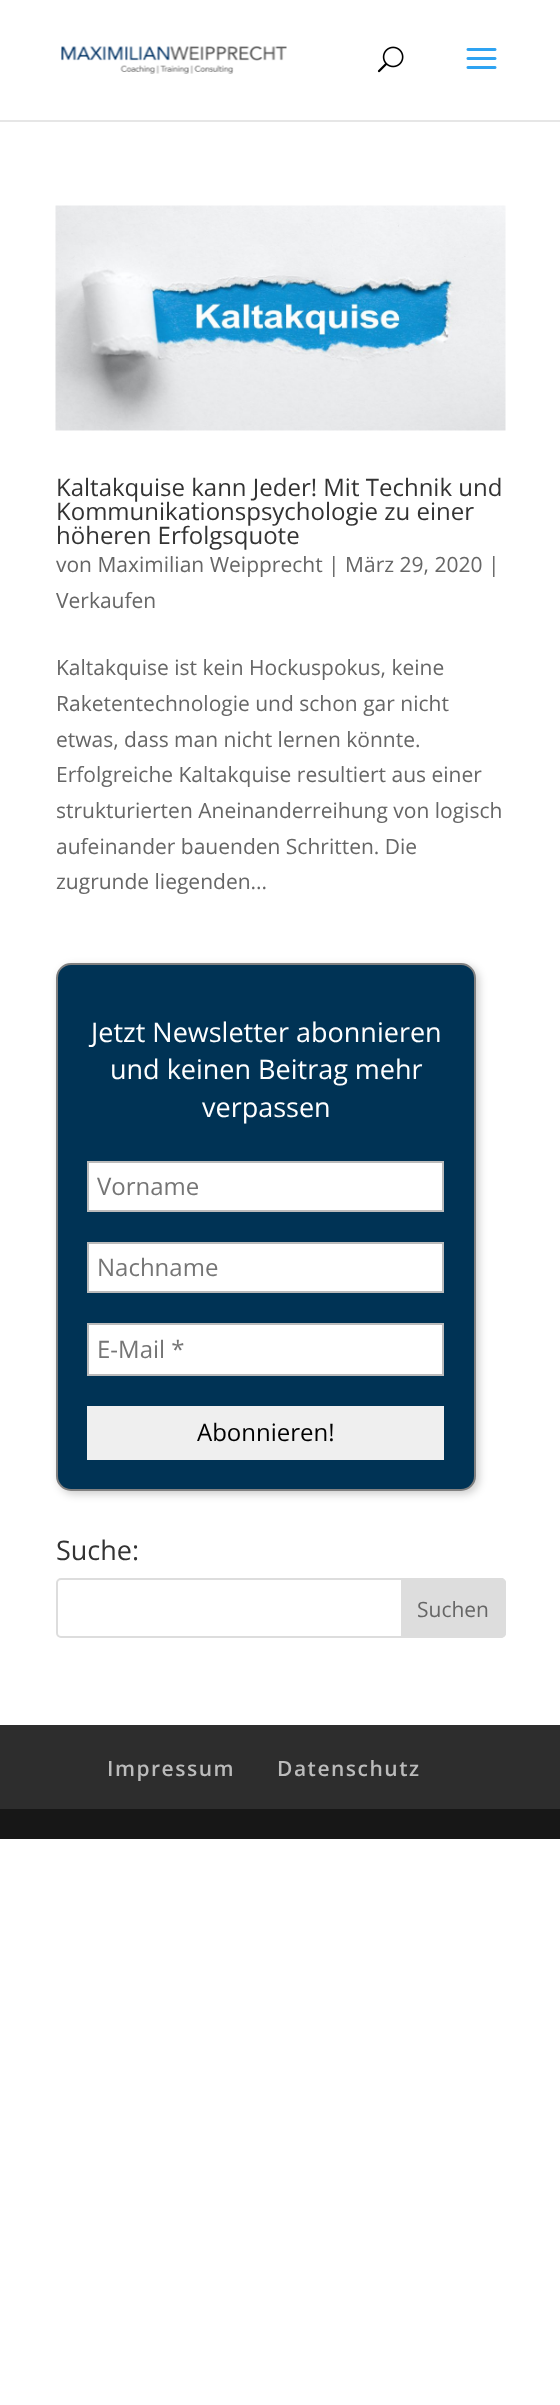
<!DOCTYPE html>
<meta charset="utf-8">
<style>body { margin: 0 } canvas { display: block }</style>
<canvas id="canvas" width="560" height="2405"></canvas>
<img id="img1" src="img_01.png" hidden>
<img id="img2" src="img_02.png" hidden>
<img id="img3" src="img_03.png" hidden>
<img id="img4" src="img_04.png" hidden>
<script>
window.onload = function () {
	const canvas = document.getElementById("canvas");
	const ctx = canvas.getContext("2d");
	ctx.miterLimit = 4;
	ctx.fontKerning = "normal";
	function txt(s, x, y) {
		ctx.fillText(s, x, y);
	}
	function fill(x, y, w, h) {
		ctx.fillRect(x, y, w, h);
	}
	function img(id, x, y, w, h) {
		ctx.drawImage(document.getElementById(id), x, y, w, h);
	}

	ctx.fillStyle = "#FFFFFF";
	fill(0, 0, 560, 2405);
	ctx.fillStyle = "#E6E6E6";
	fill(0, 120, 560, 2);
	img("img1", 61, 46, 226, 28);
	img("img2", 377, 46, 27, 27);
	img("img3", 466, 48, 31, 21);
	img("img4", 55, 205, 451, 226);
	ctx.fillStyle = "rgba(0, 0, 0, 0.2)";
	ctx.filter = "blur(4px)";
	ctx.beginPath();
	ctx.roundRect(59, 966, 420, 528, 15);
	ctx.fill();
	ctx.filter = "none";
	ctx.fillStyle = "#003355";
	ctx.beginPath();
	ctx.roundRect(57, 964, 418, 526, 14);
	ctx.fill();
	ctx.strokeStyle = "#808080";
	ctx.lineWidth = 2;
	ctx.stroke();
	ctx.fillStyle = "#FFFFFF";
	ctx.beginPath();
	ctx.rect(88, 1162, 355, 49);
	ctx.fill();
	ctx.strokeStyle = "#BBBBBB";
	ctx.stroke();
	ctx.beginPath();
	ctx.rect(88, 1243, 355, 49);
	ctx.fill();
	ctx.stroke();
	ctx.beginPath();
	ctx.rect(88, 1324, 355, 51);
	ctx.fill();
	ctx.stroke();
	ctx.fillStyle = "#EFEFEF";
	fill(87, 1406, 357, 54);
	ctx.beginPath();
	ctx.roundRect(57, 1579, 448, 58, 4);
	ctx.strokeStyle = "#DDDDDD";
	ctx.stroke();
	ctx.fillStyle = "#DDDDDD";
	ctx.beginPath();
	ctx.roundRect(402, 1579, 103, 58, [0, 4, 4, 0]);
	ctx.fill();
	ctx.stroke();
	ctx.fillStyle = "#2D2D2D";
	fill(0, 1725, 560, 84);
	ctx.fillStyle = "#171717";
	fill(0, 1809, 560, 30);
	ctx.font = "24px Open Sans";
	ctx.fillStyle = "#333333";
	txt("Kaltakquise kann Jeder! Mit Technik und", 56, 496);
	txt("Kommunikationspsychologie zu einer", 56, 520);
	txt("höheren Erfolgsquote", 56, 544);
	ctx.font = "21px Open Sans";
	ctx.fillStyle = "#666666";
	txt("von Maximilian Weipprecht | März 29, 2020 |", 56, 572);
	txt("Verkaufen", 56, 608);
	txt("Kaltakquise ist kein Hockuspokus, keine", 56, 675);
	txt("Raketentechnologie und schon gar nicht", 56, 711);
	txt("etwas, dass man nicht lernen könnte.", 56, 747);
	txt("Erfolgreiche Kaltakquise resultiert aus einer", 56, 782);
	txt("strukturierten Aneinanderreihung von logisch", 56, 818);
	txt("aufeinander bauenden Schritten. Die", 56, 854);
	txt("zugrunde liegenden...", 56, 889);
	ctx.font = "27px Open Sans";
	ctx.fillStyle = "#FFFFFF";
	txt("Jetzt Newsletter abonnieren", 91, 1042);
	txt("und keinen Beitrag mehr", 110, 1079);
	txt("verpassen", 202, 1117);
	ctx.font = "24px Open Sans";
	ctx.fillStyle = "#757575";
	txt("Vorname", 97, 1195);
	txt("Nachname", 97, 1276);
	txt("E-Mail *", 97, 1358);
	ctx.fillStyle = "#000000";
	txt("Abonnieren!", 197, 1441);
	ctx.font = "27px Open Sans";
	ctx.fillStyle = "#333333";
	txt("Suche:", 56, 1560);
	ctx.font = "21px Open Sans";
	ctx.fillStyle = "#666666";
	txt("Suchen", 417, 1617);
	ctx.letterSpacing = "1.5px";
	ctx.font = "600 21px Open Sans";
	ctx.fillStyle = "#BBBBBB";
	txt("Impressum", 107, 1776);
	txt("Datenschutz", 277, 1776);
};
</script>
